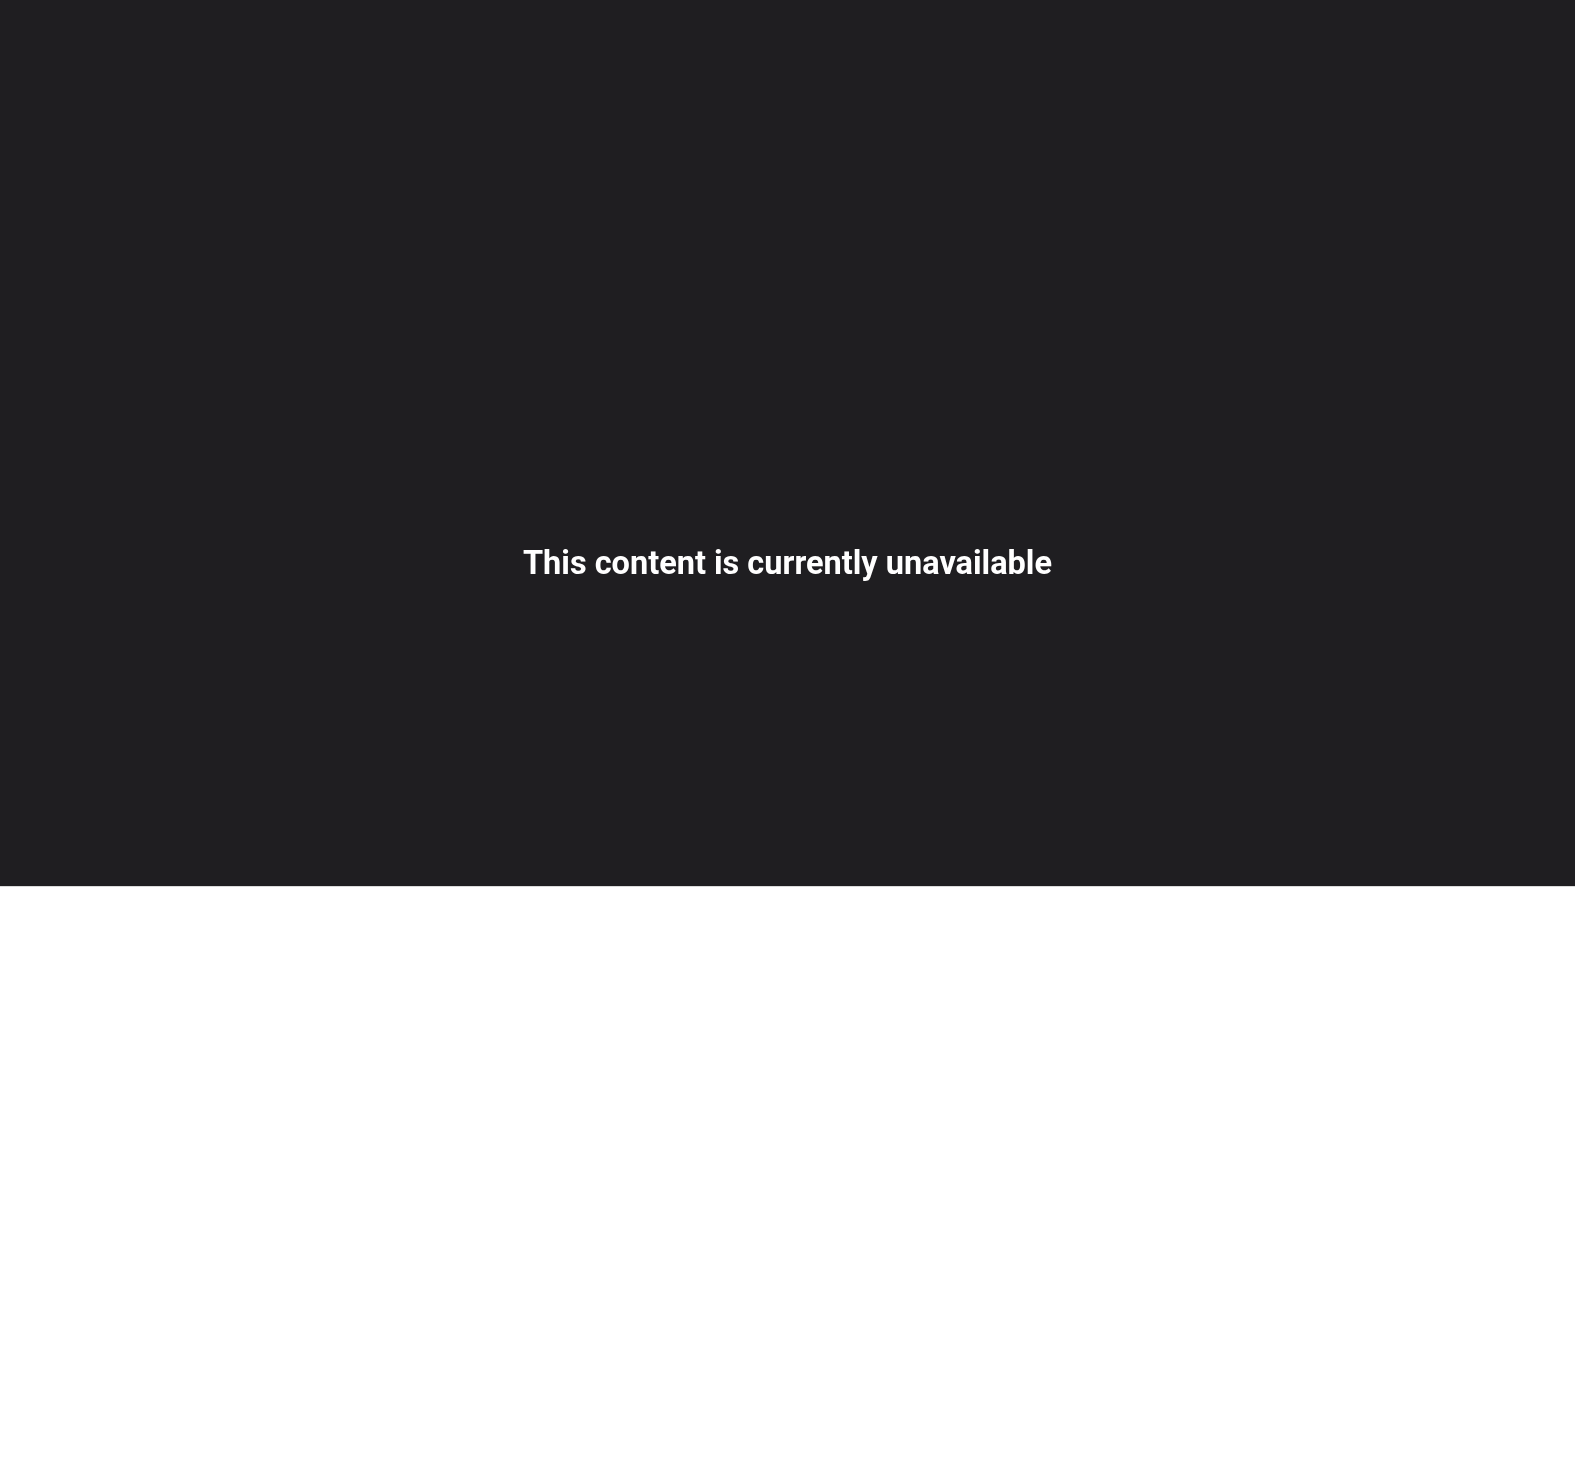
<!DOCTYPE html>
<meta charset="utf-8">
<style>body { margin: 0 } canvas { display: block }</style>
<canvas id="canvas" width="1575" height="1463"></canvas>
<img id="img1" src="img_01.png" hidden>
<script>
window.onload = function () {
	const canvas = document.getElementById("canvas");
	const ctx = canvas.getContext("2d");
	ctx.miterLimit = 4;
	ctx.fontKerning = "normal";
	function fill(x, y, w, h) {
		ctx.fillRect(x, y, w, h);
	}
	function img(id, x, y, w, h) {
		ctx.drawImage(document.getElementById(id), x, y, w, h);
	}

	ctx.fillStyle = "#FFFFFF";
	fill(0, 0, 1575, 1463);
	img("img1", 0, 0, 1575, 887);
};
</script>
